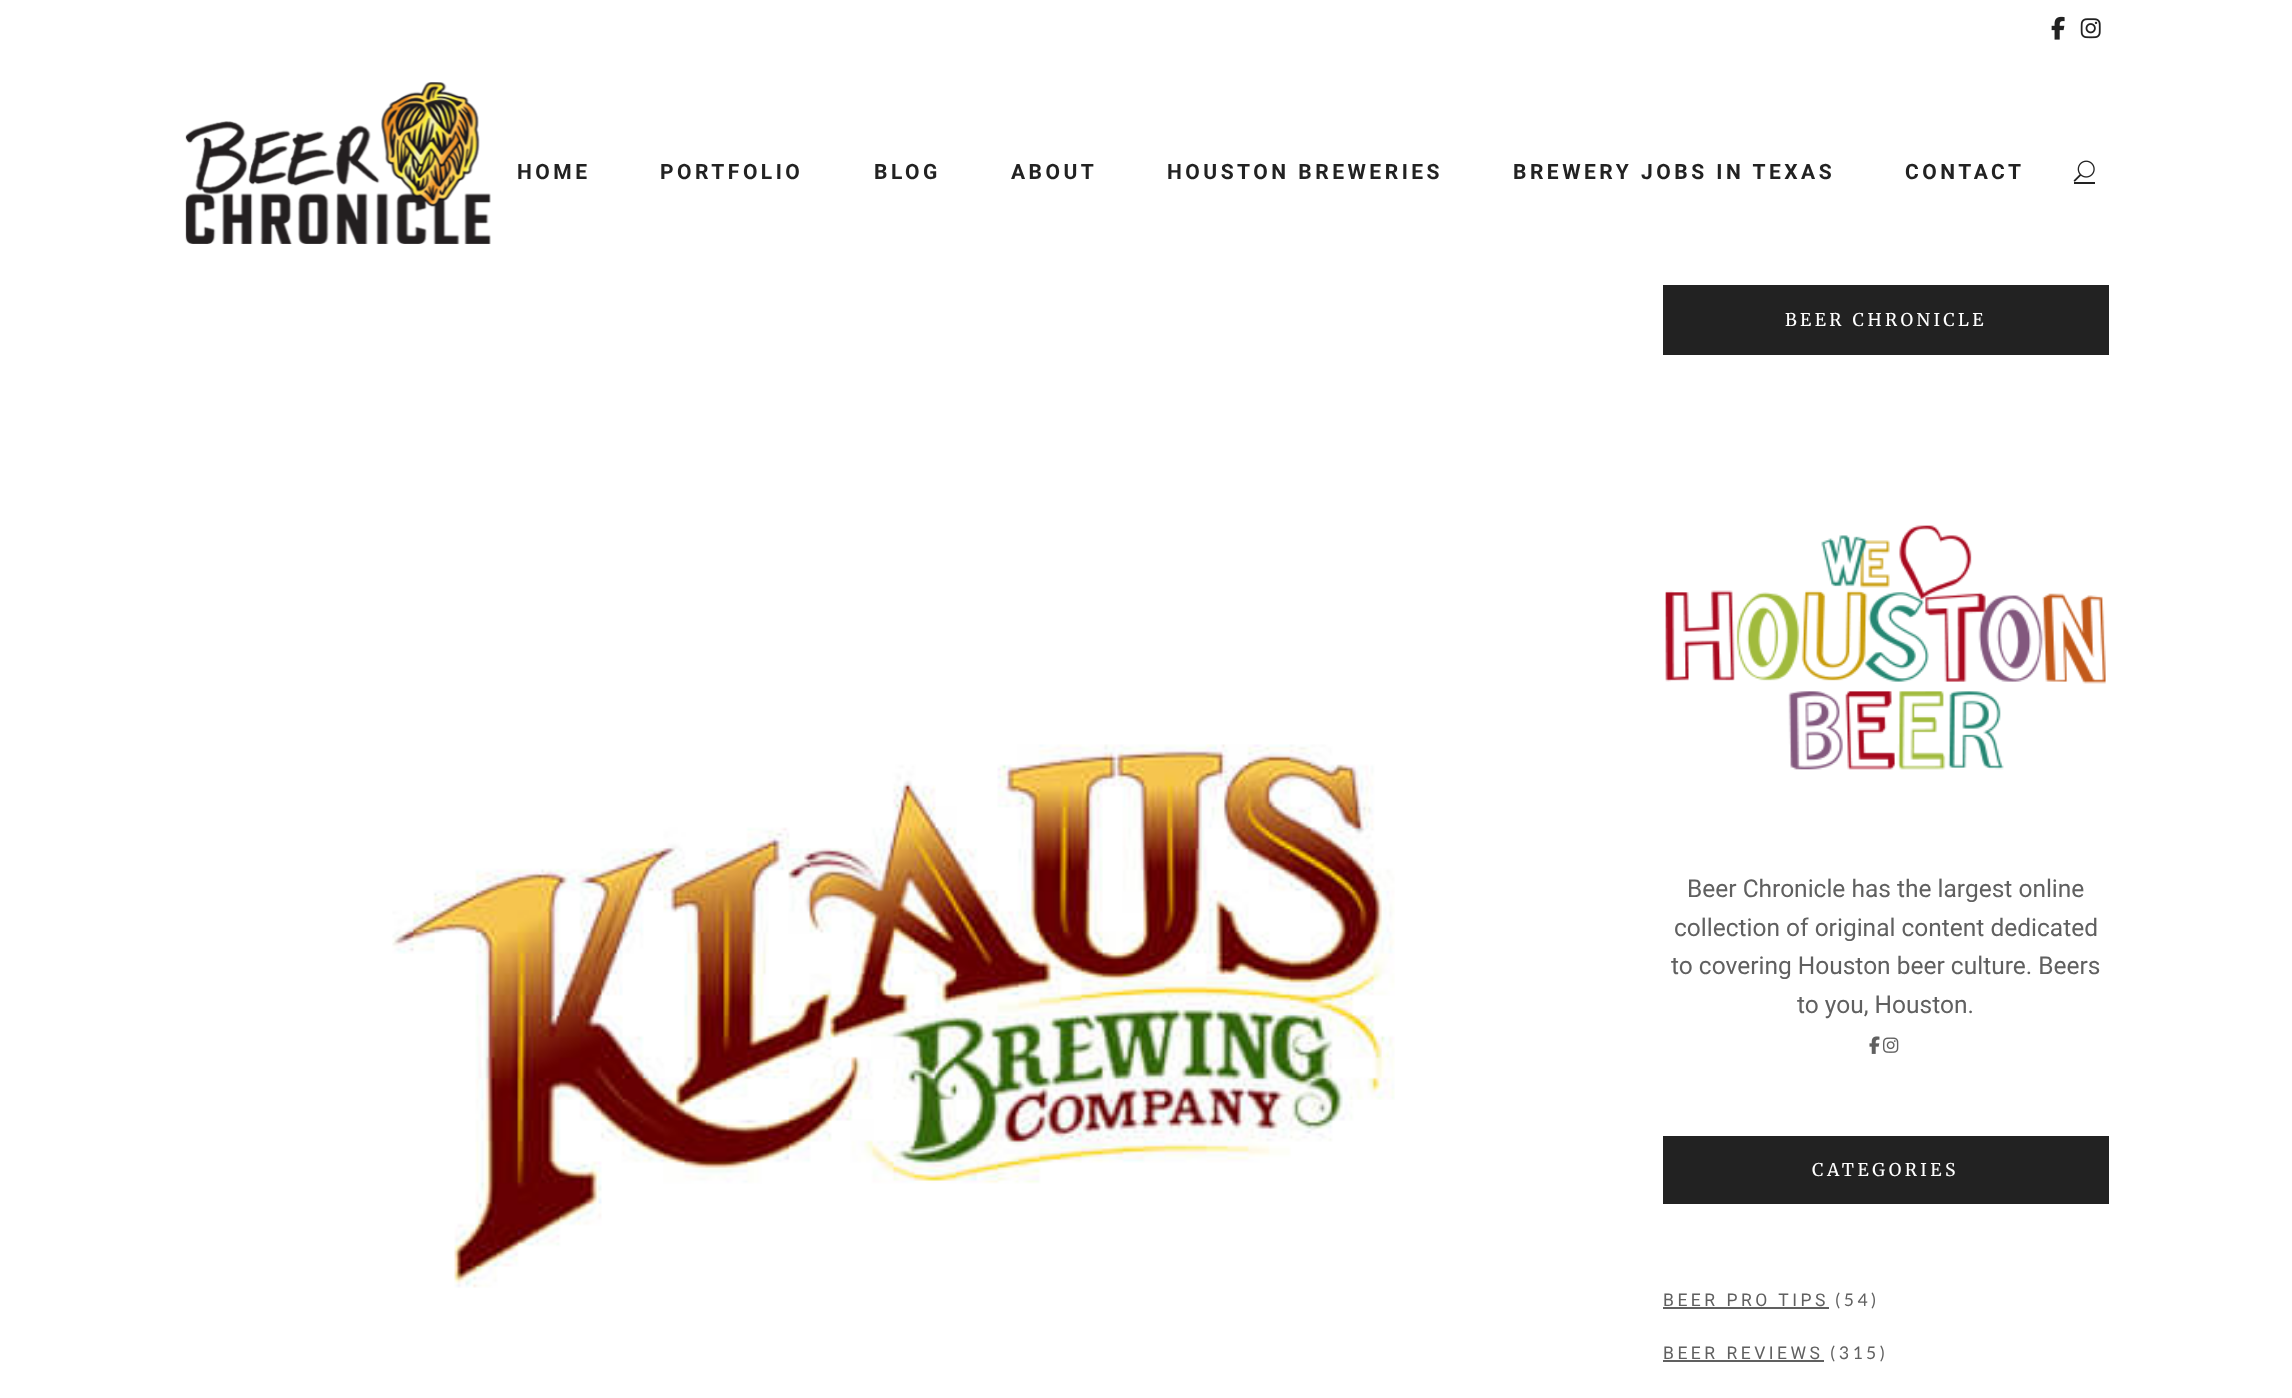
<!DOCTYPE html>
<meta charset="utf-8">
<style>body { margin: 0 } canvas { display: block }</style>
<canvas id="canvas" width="2292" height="1398"></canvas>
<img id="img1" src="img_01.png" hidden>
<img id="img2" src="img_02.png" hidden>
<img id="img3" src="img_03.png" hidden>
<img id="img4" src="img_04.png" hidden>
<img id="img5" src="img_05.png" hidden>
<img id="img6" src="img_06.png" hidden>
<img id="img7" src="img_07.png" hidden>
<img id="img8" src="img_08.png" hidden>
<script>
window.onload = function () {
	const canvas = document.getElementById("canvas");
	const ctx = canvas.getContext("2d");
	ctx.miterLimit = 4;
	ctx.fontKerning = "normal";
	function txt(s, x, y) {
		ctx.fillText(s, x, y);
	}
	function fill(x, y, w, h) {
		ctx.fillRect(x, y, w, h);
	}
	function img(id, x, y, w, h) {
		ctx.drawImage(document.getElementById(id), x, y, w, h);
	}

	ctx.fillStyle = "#FFFFFF";
	fill(0, 0, 2292, 1398);
	img("img1", 2051, 16, 14, 24);
	img("img2", 2080, 18, 21, 21);
	img("img3", 185, 82, 306, 162);
	img("img4", 2073, 160, 22, 22);
	ctx.fillStyle = "#222222";
	fill(2074, 182, 21, 2);
	img("img5", 392, 744, 1003, 544);
	fill(1663, 285, 446, 70);
	img("img6", 1665, 525, 441, 245);
	img("img7", 1869, 1036, 11, 18);
	img("img8", 1883, 1037, 16, 16);
	fill(1663, 1136, 446, 68);
	ctx.fillStyle = "#606060";
	fill(1663, 1307, 166, 2);
	fill(1663, 1360, 161, 2);
	ctx.letterSpacing = "3.5px";
	ctx.font = "bold 21px Roboto";
	ctx.fillStyle = "#222222";
	txt("HOME", 517, 179);
	txt("PORTFOLIO", 660, 179);
	txt("BLOG", 874, 179);
	txt("ABOUT", 1011, 179);
	txt("HOUSTON BREWERIES", 1167, 179);
	txt("BREWERY JOBS IN TEXAS", 1513, 179);
	txt("CONTACT", 1905, 179);
	ctx.font = "17.5px Merriweather";
	ctx.fillStyle = "#FFFFFF";
	txt("BEER CHRONICLE", 1785, 326);
	ctx.letterSpacing = "0px";
	ctx.font = "24.5px Roboto";
	ctx.fillStyle = "#606060";
	txt("Beer Chronicle has the largest online", 1687, 897);
	txt("collection of original content dedicated", 1674, 936);
	txt("to covering Houston beer culture. Beers", 1671, 974);
	txt("to you, Houston.", 1797, 1013);
	ctx.letterSpacing = "3.5px";
	ctx.font = "17.5px Merriweather";
	ctx.fillStyle = "#FFFFFF";
	txt("CATEGORIES", 1812, 1176);
	ctx.font = "17.5px Roboto";
	ctx.fillStyle = "#606060";
	txt("BEER PRO TIPS", 1663, 1306);
	ctx.font = "17.5px Lato";
	txt("(54)", 1835, 1306);
	ctx.font = "17.5px Roboto";
	txt("BEER REVIEWS", 1663, 1359);
	ctx.font = "17.5px Lato";
	txt("(315)", 1830, 1359);
};
</script>
